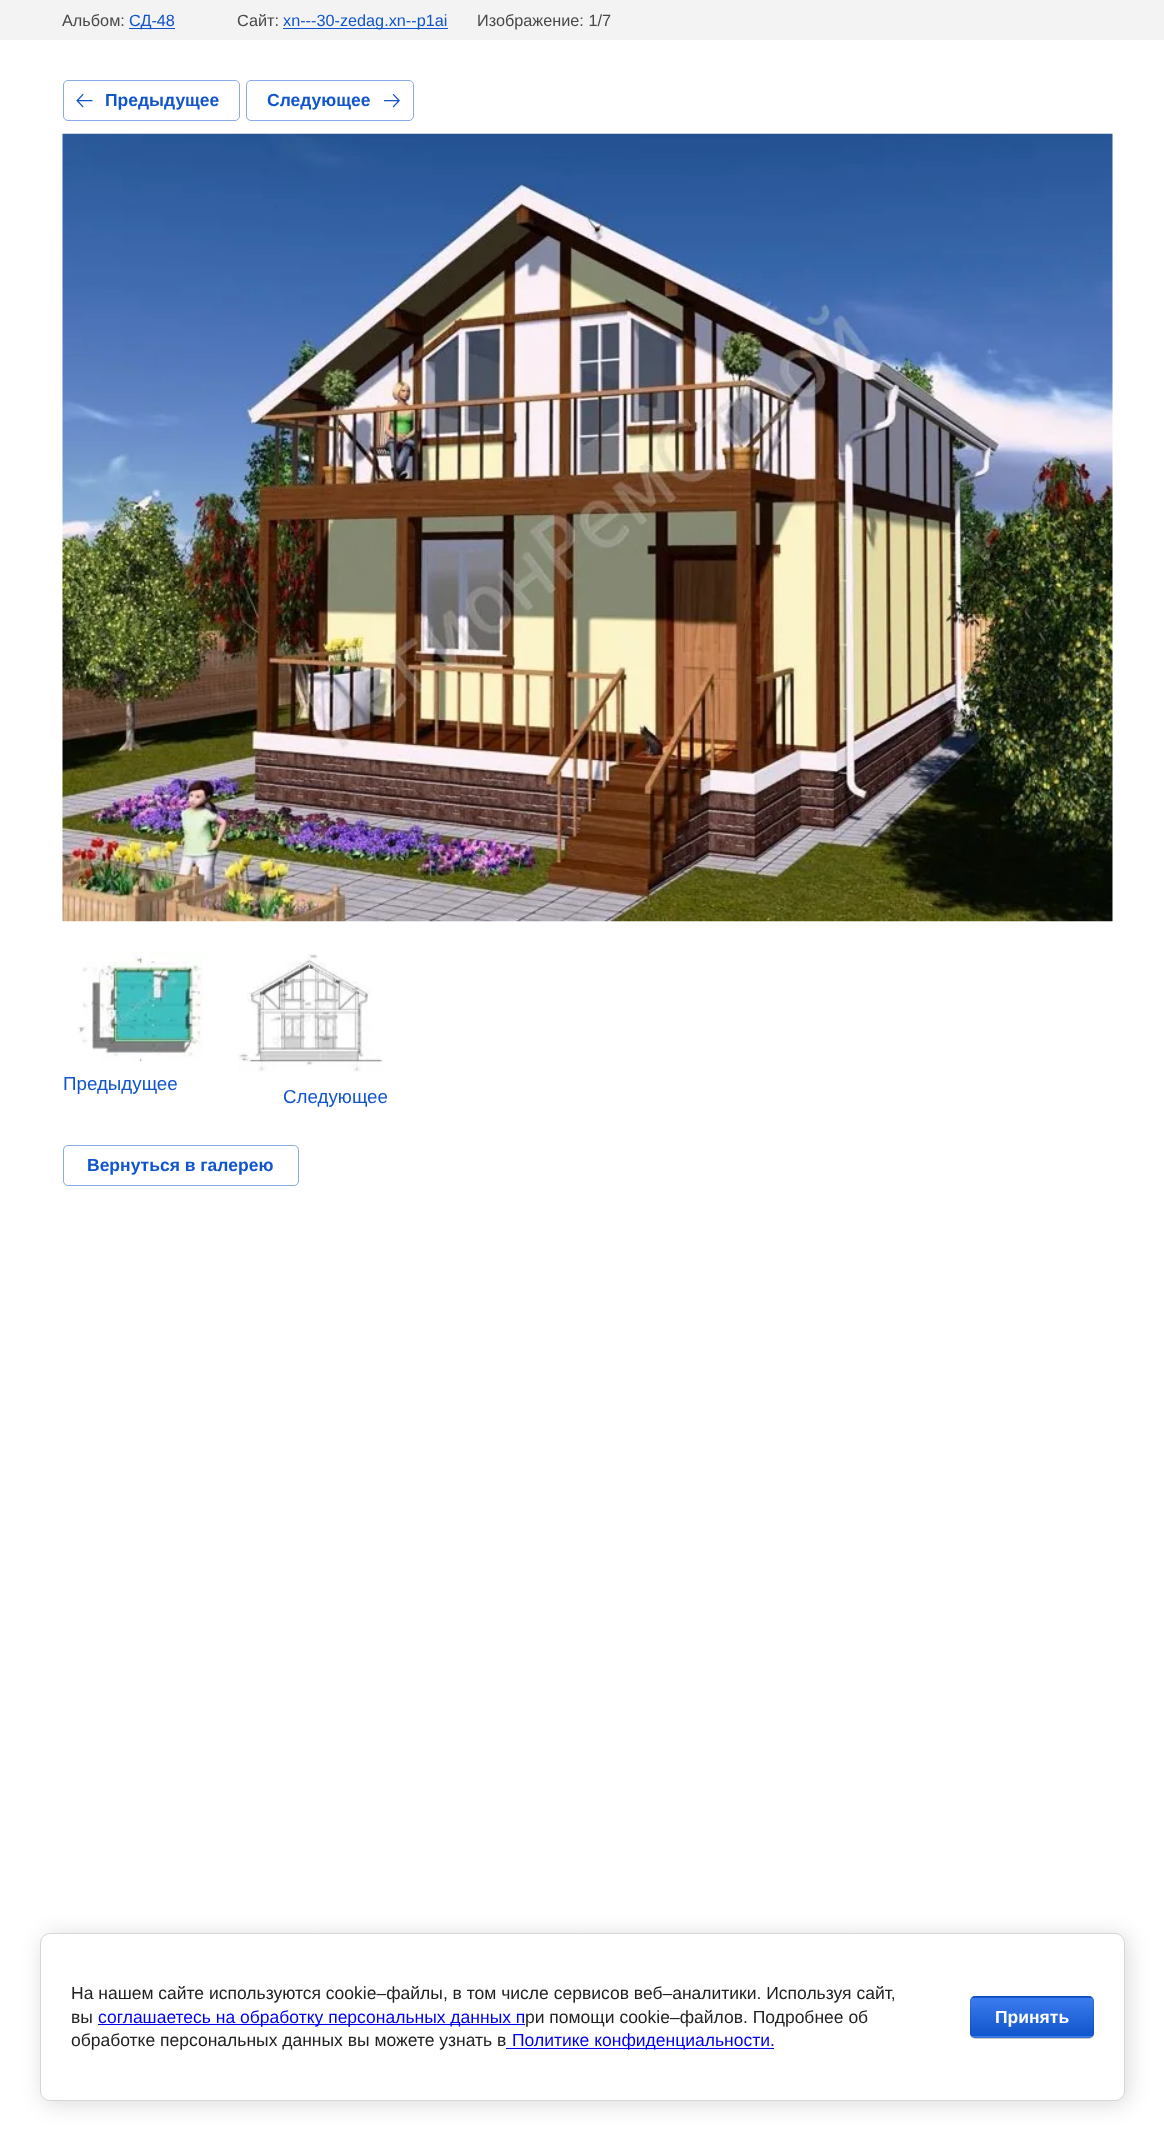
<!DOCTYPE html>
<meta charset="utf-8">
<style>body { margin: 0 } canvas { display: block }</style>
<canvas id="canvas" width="1164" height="2141"></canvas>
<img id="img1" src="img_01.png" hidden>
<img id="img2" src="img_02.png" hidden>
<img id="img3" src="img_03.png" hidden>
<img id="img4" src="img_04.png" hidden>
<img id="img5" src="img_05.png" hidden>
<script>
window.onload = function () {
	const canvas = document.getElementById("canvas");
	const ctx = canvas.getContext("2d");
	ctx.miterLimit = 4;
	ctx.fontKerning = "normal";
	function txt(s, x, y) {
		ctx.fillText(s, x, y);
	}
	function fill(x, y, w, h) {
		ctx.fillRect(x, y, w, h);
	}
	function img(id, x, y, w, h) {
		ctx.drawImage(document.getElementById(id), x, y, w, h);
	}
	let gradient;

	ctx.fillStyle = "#FFFFFF";
	fill(0, 0, 1164, 2141);
	ctx.fillStyle = "#F3F3F3";
	fill(0, 0, 1164, 40);
	ctx.fillStyle = "#1155CC";
	fill(129, 28, 46, 1);
	fill(283, 28, 165, 1);
	ctx.beginPath();
	ctx.roundRect(63.5, 80.5, 176, 40, 4.5);
	ctx.strokeStyle = "#88AAE6";
	ctx.stroke();
	img("img1", 76, 94, 17, 14);
	ctx.beginPath();
	ctx.roundRect(246.5, 80.5, 167, 40, 4.5);
	ctx.stroke();
	img("img2", 384, 94, 16, 14);
	img("img3", 62, 133, 1051, 789);
	img("img4", 77, 951, 126, 111);
	img("img5", 238, 953, 145, 119);
	ctx.beginPath();
	ctx.roundRect(63.5, 1145.5, 235, 40, 4.5);
	ctx.stroke();
	ctx.fillStyle = "rgba(0, 0, 0, 0.14)";
	ctx.filter = "blur(11px)";
	ctx.beginPath();
	ctx.roundRect(43, 1935, 1085, 169, 10);
	ctx.fill();
	ctx.filter = "none";
	ctx.fillStyle = "#FFFFFF";
	ctx.beginPath();
	ctx.roundRect(40.5, 1933.5, 1084, 167, 9.5);
	ctx.fill();
	ctx.strokeStyle = "#D6D6D6";
	ctx.stroke();
	ctx.fillStyle = "#0000EE";
	fill(98, 2024, 427, 1);
	fill(506, 2048, 268, 1);
	ctx.fillStyle = "rgba(0, 0, 0, 0.2)";
	ctx.filter = "blur(0.5px)";
	ctx.beginPath();
	ctx.roundRect(970, 1998, 124, 41, 5);
	ctx.fill();
	ctx.filter = "none";
	ctx.save();
	ctx.beginPath();
	ctx.roundRect(970, 1996, 124, 42, 5);
	ctx.clip();
	gradient = ctx.createLinearGradient(1032, 1959, 1032, 1998);
	gradient.addColorStop(0, "#3B7CEF");
	gradient.addColorStop(1, "#1155CC");
	ctx.fillStyle = gradient;
	fill(970, 1996, 124, 2);
	gradient = ctx.createLinearGradient(1032, 1998, 1032, 2036);
	gradient.addColorStop(0, "#3B7CEF");
	gradient.addColorStop(1, "#1155CC");
	ctx.fillStyle = gradient;
	fill(970, 1998, 124, 38);
	gradient = ctx.createLinearGradient(1032, 2036, 1032, 2075);
	gradient.addColorStop(0, "#3B7CEF");
	gradient.addColorStop(1, "#1155CC");
	ctx.fillStyle = gradient;
	fill(970, 2036, 124, 2);
	ctx.restore();
	ctx.beginPath();
	ctx.roundRect(970.5, 1996.5, 123, 41, 4.5);
	ctx.strokeStyle = "rgba(0, 0, 0, 0.1)";
	ctx.stroke();
	ctx.font = "16.25px Liberation Sans";
	ctx.fillStyle = "#484848";
	txt("Альбом:", 62, 26);
	ctx.fillStyle = "#1155CC";
	txt("СД-48", 129, 26);
	ctx.fillStyle = "#484848";
	txt("Сайт:", 237, 26);
	ctx.fillStyle = "#1155CC";
	txt("xn---30-zedag.xn--p1ai", 283, 26);
	ctx.fillStyle = "#484848";
	txt("Изображение: 1/7", 477, 26);
	ctx.font = "bold 17.5px Liberation Sans";
	ctx.fillStyle = "#1155CC";
	txt("Предыдущее", 105, 106);
	txt("Следующее", 267, 106);
	ctx.font = "18.75px Liberation Sans";
	txt("Предыдущее", 63, 1090);
	txt("Следующее", 283, 1103);
	ctx.font = "bold 17.5px Liberation Sans";
	txt("Вернуться в галерею", 87, 1171);
	ctx.font = "17.5px Liberation Sans";
	ctx.fillStyle = "#212121";
	txt("На нашем сайте используются cookie–файлы, в том числе сервисов веб–аналитики. Используя сайт,", 71, 1999);
	txt("вы", 71, 2023);
	ctx.fillStyle = "#0000EE";
	txt("соглашаетесь на обработку персональных данных п", 98, 2023);
	ctx.fillStyle = "#212121";
	txt("ри помощи cookie–файлов. Подробнее об", 525, 2023);
	txt("обработке персональных данных вы можете узнать в", 71, 2046);
	ctx.fillStyle = "#0000EE";
	txt("Политике конфиденциальности.", 512, 2046);
	ctx.font = "bold 17.5px Liberation Sans";
	ctx.fillStyle = "#FFFFFF";
	txt("Принять", 995, 2023);
};
</script>
